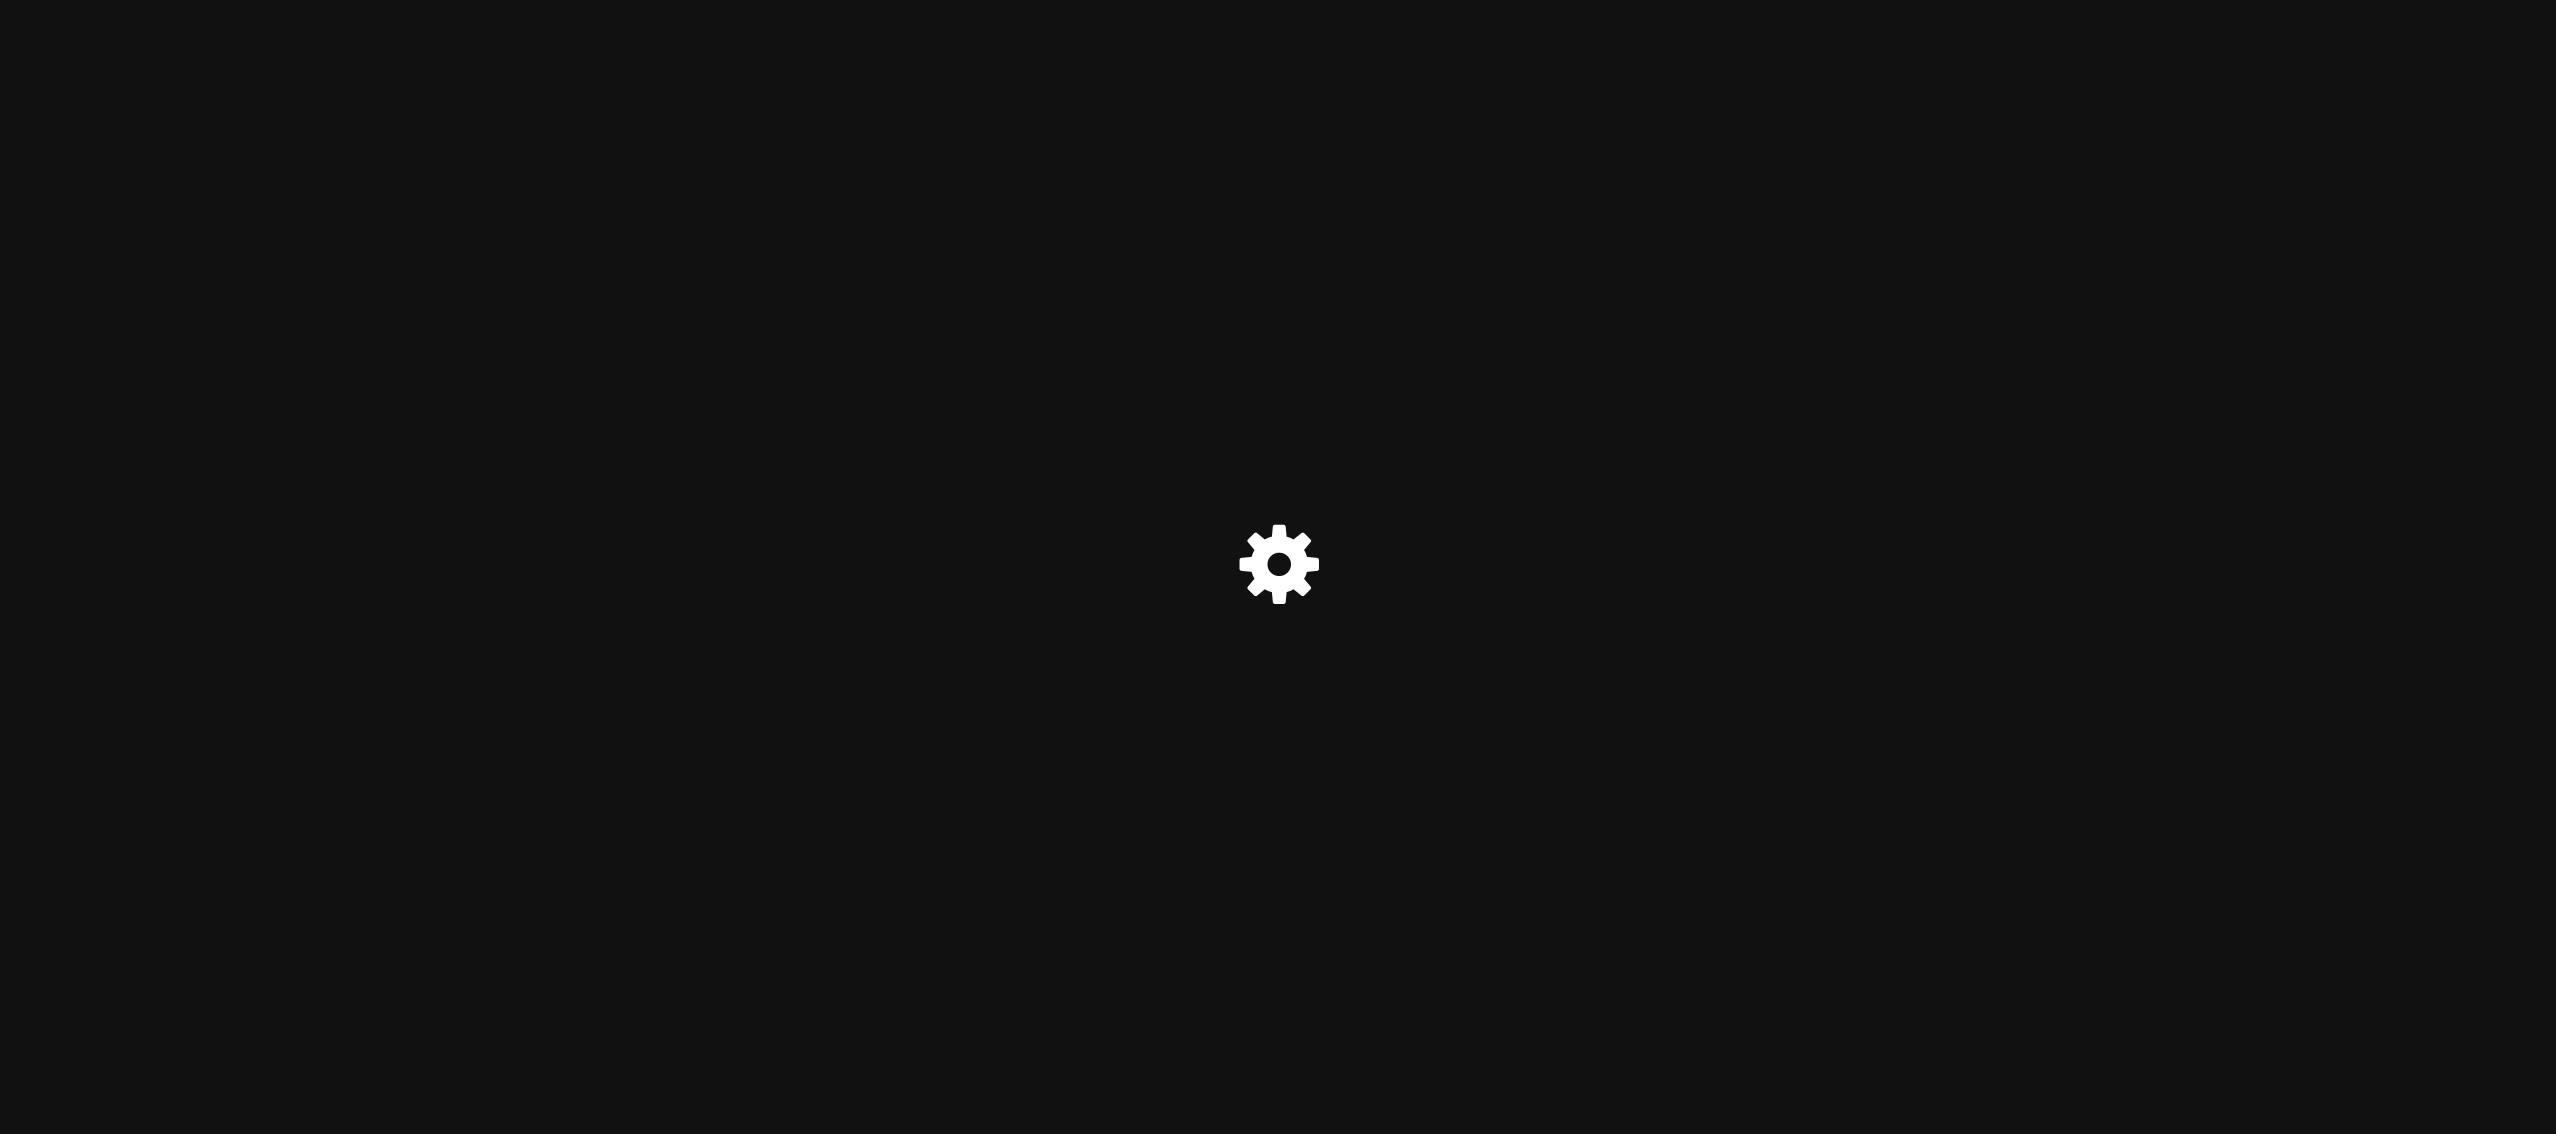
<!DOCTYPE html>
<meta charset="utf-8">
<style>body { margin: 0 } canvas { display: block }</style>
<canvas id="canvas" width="2556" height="1134"></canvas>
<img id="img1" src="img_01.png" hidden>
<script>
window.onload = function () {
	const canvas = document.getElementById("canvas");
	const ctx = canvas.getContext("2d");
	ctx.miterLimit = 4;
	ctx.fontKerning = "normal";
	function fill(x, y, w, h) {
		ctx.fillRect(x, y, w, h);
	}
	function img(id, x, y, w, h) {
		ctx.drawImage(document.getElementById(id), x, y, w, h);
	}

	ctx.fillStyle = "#111111";
	fill(0, 0, 2556, 1134);
	img("img1", 1239, 524, 80, 80);
};
</script>
